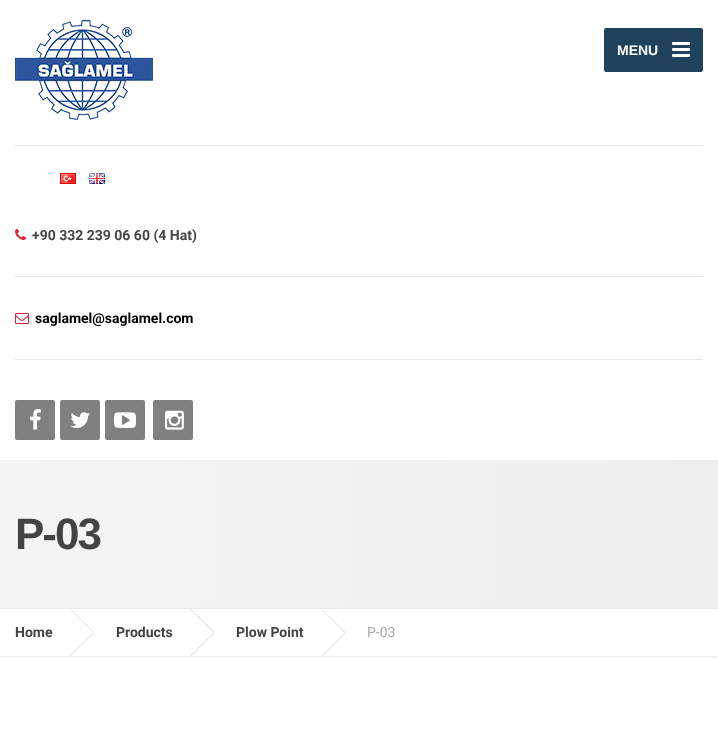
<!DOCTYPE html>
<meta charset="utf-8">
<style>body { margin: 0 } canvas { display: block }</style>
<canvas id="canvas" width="718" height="743"></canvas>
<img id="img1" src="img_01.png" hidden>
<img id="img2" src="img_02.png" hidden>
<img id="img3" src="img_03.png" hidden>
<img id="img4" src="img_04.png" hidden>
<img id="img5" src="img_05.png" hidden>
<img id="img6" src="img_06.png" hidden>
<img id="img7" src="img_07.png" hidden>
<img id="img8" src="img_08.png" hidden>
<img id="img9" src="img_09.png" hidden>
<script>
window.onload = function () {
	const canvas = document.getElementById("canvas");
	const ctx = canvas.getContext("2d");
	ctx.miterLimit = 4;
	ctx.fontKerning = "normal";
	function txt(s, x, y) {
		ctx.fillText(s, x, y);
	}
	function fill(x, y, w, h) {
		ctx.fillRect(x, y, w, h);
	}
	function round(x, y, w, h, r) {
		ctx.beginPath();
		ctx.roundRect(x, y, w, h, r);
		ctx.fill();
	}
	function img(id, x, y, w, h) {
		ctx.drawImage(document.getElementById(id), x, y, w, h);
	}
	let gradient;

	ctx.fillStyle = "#FFFFFF";
	fill(0, 0, 718, 743);
	ctx.fillStyle = "#E6E6E6";
	fill(15, 145, 688, 1);
	img("img1", 15, 20, 138, 100);
	ctx.fillStyle = "#1F425D";
	round(604, 28, 99, 44, 2);
	ctx.fillStyle = "#FFFFFF";
	round(672, 42, 18, 3, 1);
	round(672, 48, 18, 3, 1);
	round(672, 54, 18, 3, 1);
	img("img2", 60, 173, 16, 11);
	img("img3", 89, 173, 16, 11);
	ctx.fillStyle = "#E6E6E6";
	fill(15, 276, 688, 1);
	img("img4", 15, 229, 11, 11);
	fill(15, 359, 688, 1);
	img("img5", 15, 313, 14, 11);
	ctx.fillStyle = "#808080";
	round(15, 400, 40, 40, 2);
	img("img6", 30, 409, 11, 21);
	round(60, 400, 40, 40, 2);
	img("img7", 70, 412, 20, 16);
	round(105, 400, 40, 40, 2);
	img("img8", 114, 412, 22, 16);
	round(153, 400, 40, 40, 2);
	img("img9", 165, 410, 19, 20);
	gradient = ctx.createLinearGradient(0, 534, 718, 534);
	gradient.addColorStop(0, "#F5F5F5");
	gradient.addColorStop(1, "#EEEEEE");
	ctx.fillStyle = gradient;
	fill(0, 460, 718, 148);
	ctx.save();
	ctx.beginPath();
	ctx.moveTo(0, 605);
	ctx.lineTo(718, 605);
	ctx.lineTo(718, 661);
	ctx.lineTo(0, 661);
	ctx.closePath();
	ctx.moveTo(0, 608);
	ctx.lineTo(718, 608);
	ctx.lineTo(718, 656);
	ctx.lineTo(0, 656);
	ctx.closePath();
	ctx.clip("evenodd");
	ctx.fillStyle = "#E6E6E6";
	ctx.filter = "blur(1px)";
	ctx.beginPath();
	ctx.rect(0, 609, 718, 48);
	ctx.fill();
	ctx.filter = "none";
	ctx.restore();
	ctx.fillStyle = "#E6E6E6";
	fill(0, 608, 718, 1);
	ctx.beginPath();
	ctx.moveTo(70, 609.5);
	ctx.lineTo(70.5, 609);
	ctx.lineTo(94, 632);
	ctx.lineTo(93.5, 633);
	ctx.closePath();
	ctx.fill();
	ctx.beginPath();
	ctx.moveTo(93.5, 632.5);
	ctx.lineTo(94, 633);
	ctx.lineTo(70.5, 656.5);
	ctx.lineTo(70, 655.5);
	ctx.closePath();
	ctx.fill();
	ctx.beginPath();
	ctx.moveTo(190, 609.5);
	ctx.lineTo(191, 609);
	ctx.lineTo(214.5, 632);
	ctx.lineTo(213.5, 633);
	ctx.closePath();
	ctx.fill();
	ctx.beginPath();
	ctx.moveTo(213.5, 632.5);
	ctx.lineTo(214.5, 633);
	ctx.lineTo(191, 656.5);
	ctx.lineTo(190, 655.5);
	ctx.closePath();
	ctx.fill();
	ctx.beginPath();
	ctx.moveTo(321.5, 609.5);
	ctx.lineTo(322, 609);
	ctx.lineTo(345.5, 632);
	ctx.lineTo(344.5, 633);
	ctx.closePath();
	ctx.fill();
	ctx.beginPath();
	ctx.moveTo(344.5, 632.5);
	ctx.lineTo(345.5, 633);
	ctx.lineTo(322, 656.5);
	ctx.lineTo(321.5, 655.5);
	ctx.closePath();
	ctx.fill();
	ctx.font = "bold 14px Liberation Sans";
	ctx.fillStyle = "#FFFFFF";
	txt("MENU", 617, 55);
	ctx.font = "bold 14px Roboto";
	ctx.fillStyle = "#444444";
	txt("+90 332 239 06 60 (4 Hat)", 32, 240);
	ctx.fillStyle = "#000000";
	txt("saglamel@saglamel.com", 35, 323);
	ctx.letterSpacing = "-2px";
	ctx.font = "bold 44px Liberation Sans";
	ctx.fillStyle = "#444444";
	txt("P-03", 15, 549);
	ctx.letterSpacing = "0px";
	ctx.font = "bold 14px Roboto";
	txt("Home", 15, 637);
	txt("Products", 116, 637);
	txt("Plow Point", 236, 637);
	ctx.font = "14px Roboto";
	ctx.fillStyle = "#AAAAAA";
	txt("P-03", 367, 637);
};
</script>
